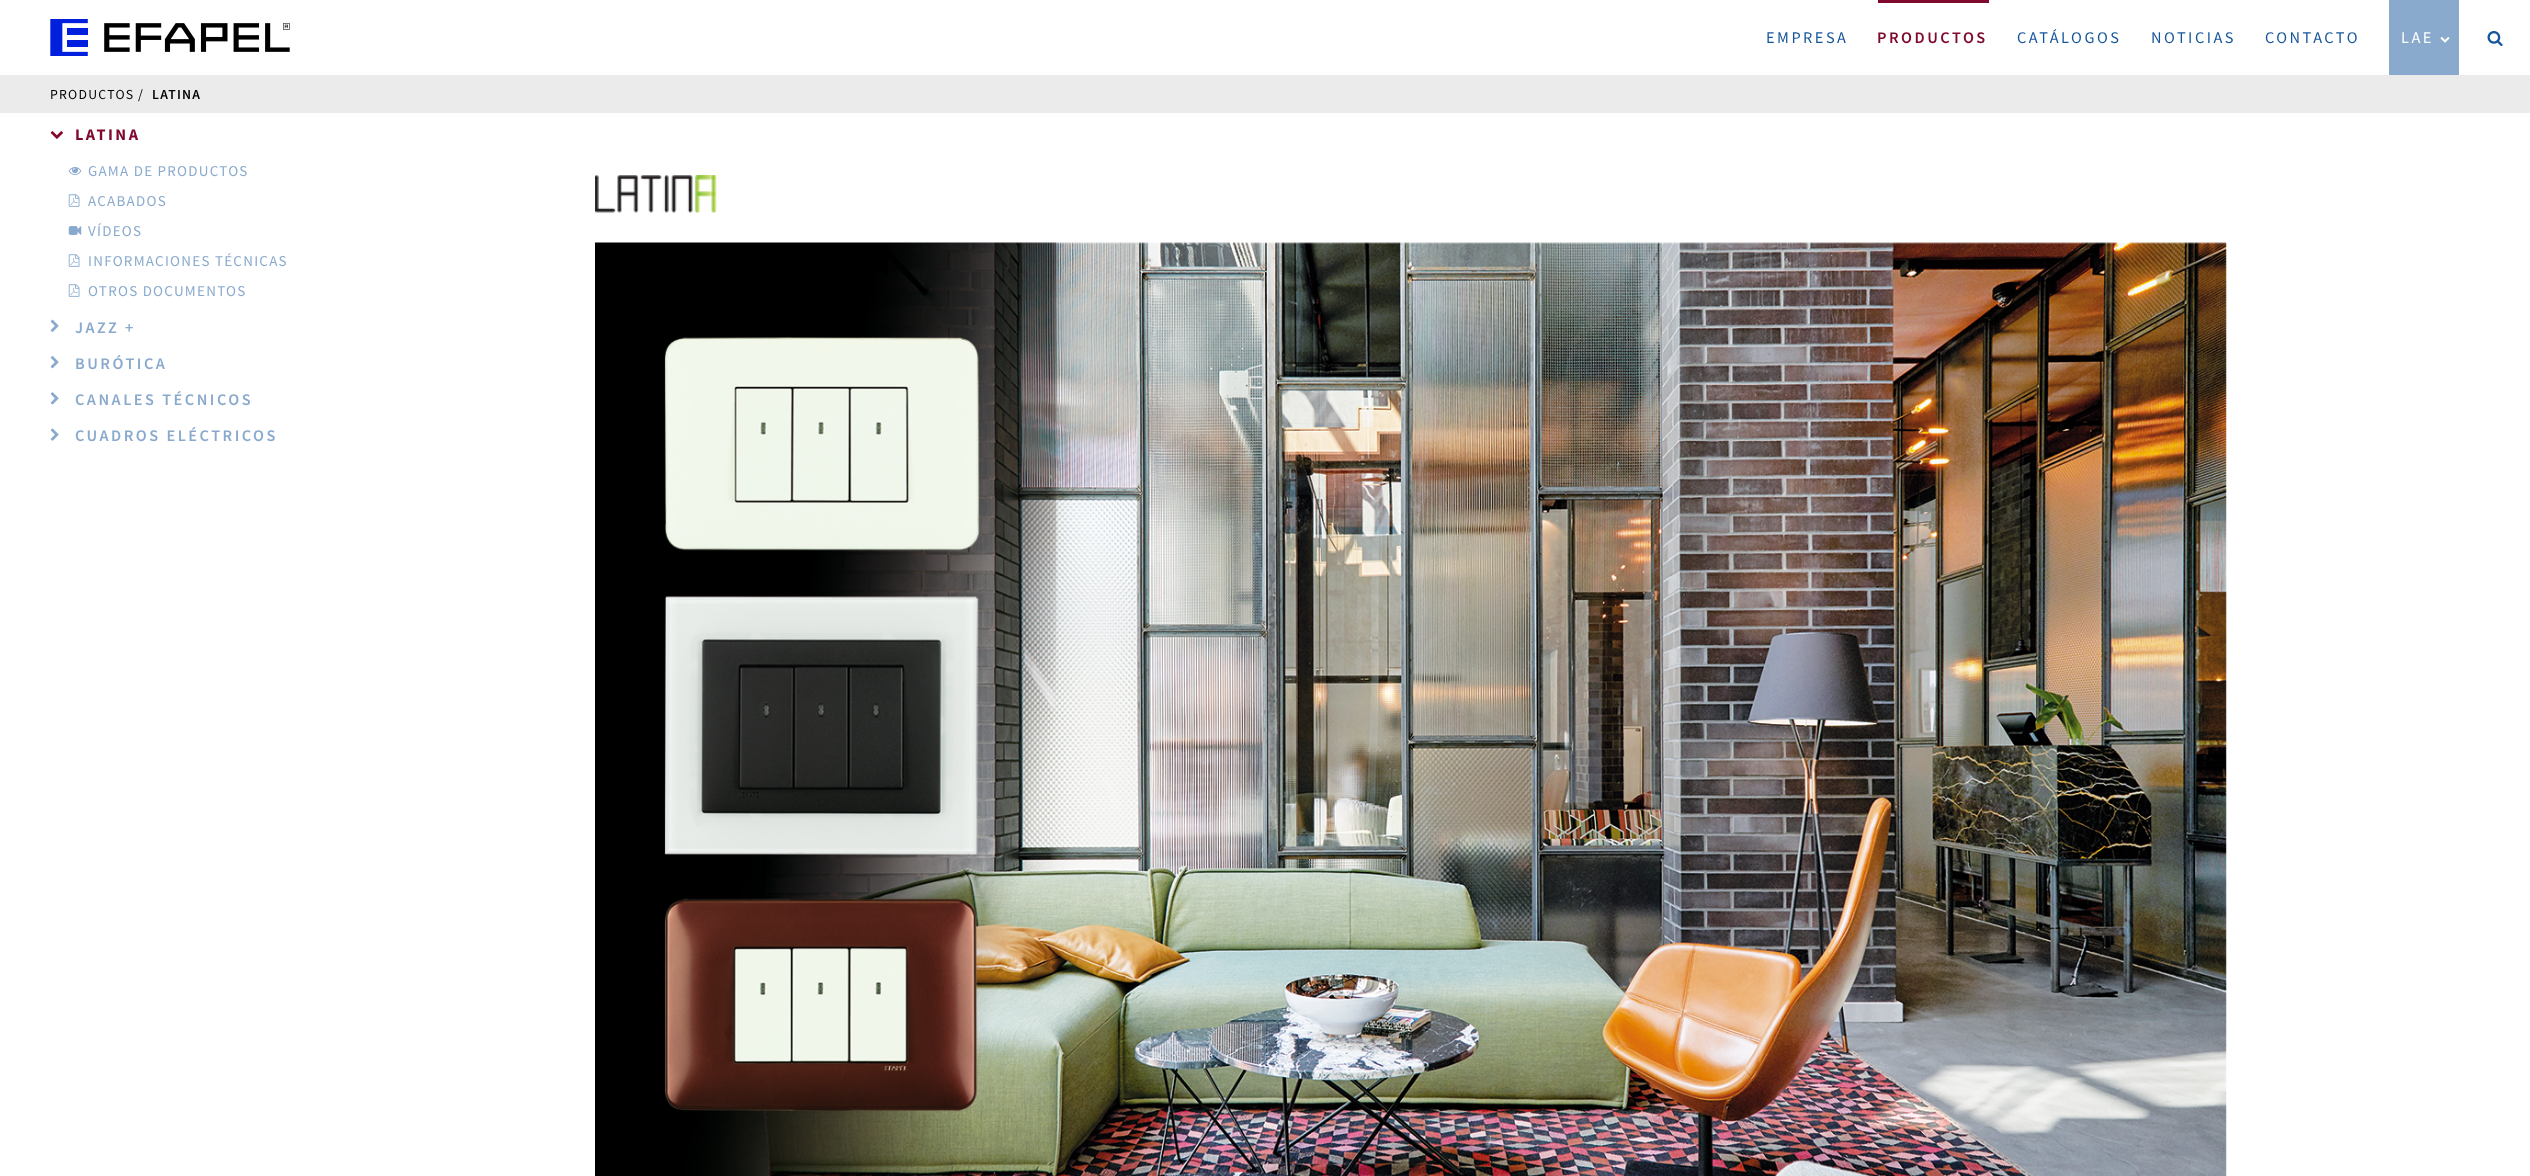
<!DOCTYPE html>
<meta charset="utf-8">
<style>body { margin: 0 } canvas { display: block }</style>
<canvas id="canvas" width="2530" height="1176"></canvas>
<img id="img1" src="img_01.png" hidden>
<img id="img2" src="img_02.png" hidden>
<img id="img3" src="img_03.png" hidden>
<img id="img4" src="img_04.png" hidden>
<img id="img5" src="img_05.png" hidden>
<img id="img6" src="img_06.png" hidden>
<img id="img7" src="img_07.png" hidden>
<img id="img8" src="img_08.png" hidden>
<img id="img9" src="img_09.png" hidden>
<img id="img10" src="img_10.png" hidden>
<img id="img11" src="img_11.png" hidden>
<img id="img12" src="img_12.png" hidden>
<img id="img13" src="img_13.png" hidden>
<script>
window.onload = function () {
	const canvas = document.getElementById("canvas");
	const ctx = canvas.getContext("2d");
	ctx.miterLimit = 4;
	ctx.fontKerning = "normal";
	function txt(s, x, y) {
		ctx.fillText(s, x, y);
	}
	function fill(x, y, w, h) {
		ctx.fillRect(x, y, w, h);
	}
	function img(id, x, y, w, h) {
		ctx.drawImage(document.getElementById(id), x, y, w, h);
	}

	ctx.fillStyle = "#FFFFFF";
	fill(0, 0, 2530, 1176);
	img("img1", 50, 19, 240, 37);
	ctx.fillStyle = "#800A2D";
	fill(1878, 0, 111, 3);
	ctx.fillStyle = "#8AAACD";
	fill(2389, 0, 70, 75);
	img("img2", 2440, 37, 10, 6);
	img("img3", 2487, 31, 16, 16);
	ctx.fillStyle = "#EBEBEB";
	fill(0, 75, 2530, 38);
	img("img4", 50, 131, 13, 8);
	img("img5", 68, 167, 14, 8);
	img("img6", 68, 194, 12, 13);
	img("img7", 68, 226, 14, 9);
	img("img6", 68, 254, 12, 13);
	img("img6", 68, 284, 12, 13);
	img("img8", 50, 319, 9, 13);
	img("img9", 50, 356, 9, 13);
	img("img10", 50, 392, 9, 13);
	img("img11", 50, 428, 9, 13);
	img("img12", 595, 175, 122, 38);
	img("img13", 595, 242, 1632, 934);
	ctx.letterSpacing = "2.5px";
	ctx.font = "16.25px Source Sans Pro";
	ctx.fillStyle = "#15569B";
	txt("EMPRESA", 1766, 43);
	ctx.font = "600 16.25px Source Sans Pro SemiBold";
	ctx.fillStyle = "#800A2D";
	txt("PRODUCTOS", 1877, 43);
	ctx.font = "16.25px Source Sans Pro";
	ctx.fillStyle = "#15569B";
	txt("CATÁLOGOS", 2017, 43);
	txt("NOTICIAS", 2151, 43);
	txt("CONTACTO", 2265, 43);
	ctx.fillStyle = "#FFFFFF";
	txt("LAE", 2401, 43);
	ctx.letterSpacing = "1.25px";
	ctx.font = "13.75px Source Sans Pro";
	ctx.fillStyle = "#000000";
	txt("PRODUCTOS", 50, 99);
	ctx.letterSpacing = "0px";
	txt("/", 138, 99);
	ctx.letterSpacing = "1.25px";
	ctx.font = "600 13.75px Source Sans Pro SemiBold";
	txt("LATINA", 152, 99);
	ctx.letterSpacing = "2.5px";
	ctx.font = "bold 16.25px Source Sans Pro";
	ctx.fillStyle = "#800A2D";
	txt("LATINA", 75, 140);
	ctx.letterSpacing = "1.25px";
	ctx.font = "15px Source Sans Pro";
	ctx.fillStyle = "#8AAACD";
	txt("GAMA DE PRODUCTOS", 88, 176);
	txt("ACABADOS", 88, 206);
	txt("VÍDEOS", 88, 236);
	txt("INFORMACIONES TÉCNICAS", 88, 266);
	txt("OTROS DOCUMENTOS", 88, 296);
	ctx.letterSpacing = "2.5px";
	ctx.font = "600 16.25px Source Sans Pro SemiBold";
	txt("JAZZ +", 75, 333);
	txt("BURÓTICA", 75, 369);
	txt("CANALES TÉCNICOS", 75, 405);
	txt("CUADROS ELÉCTRICOS", 75, 441);
};
</script>
